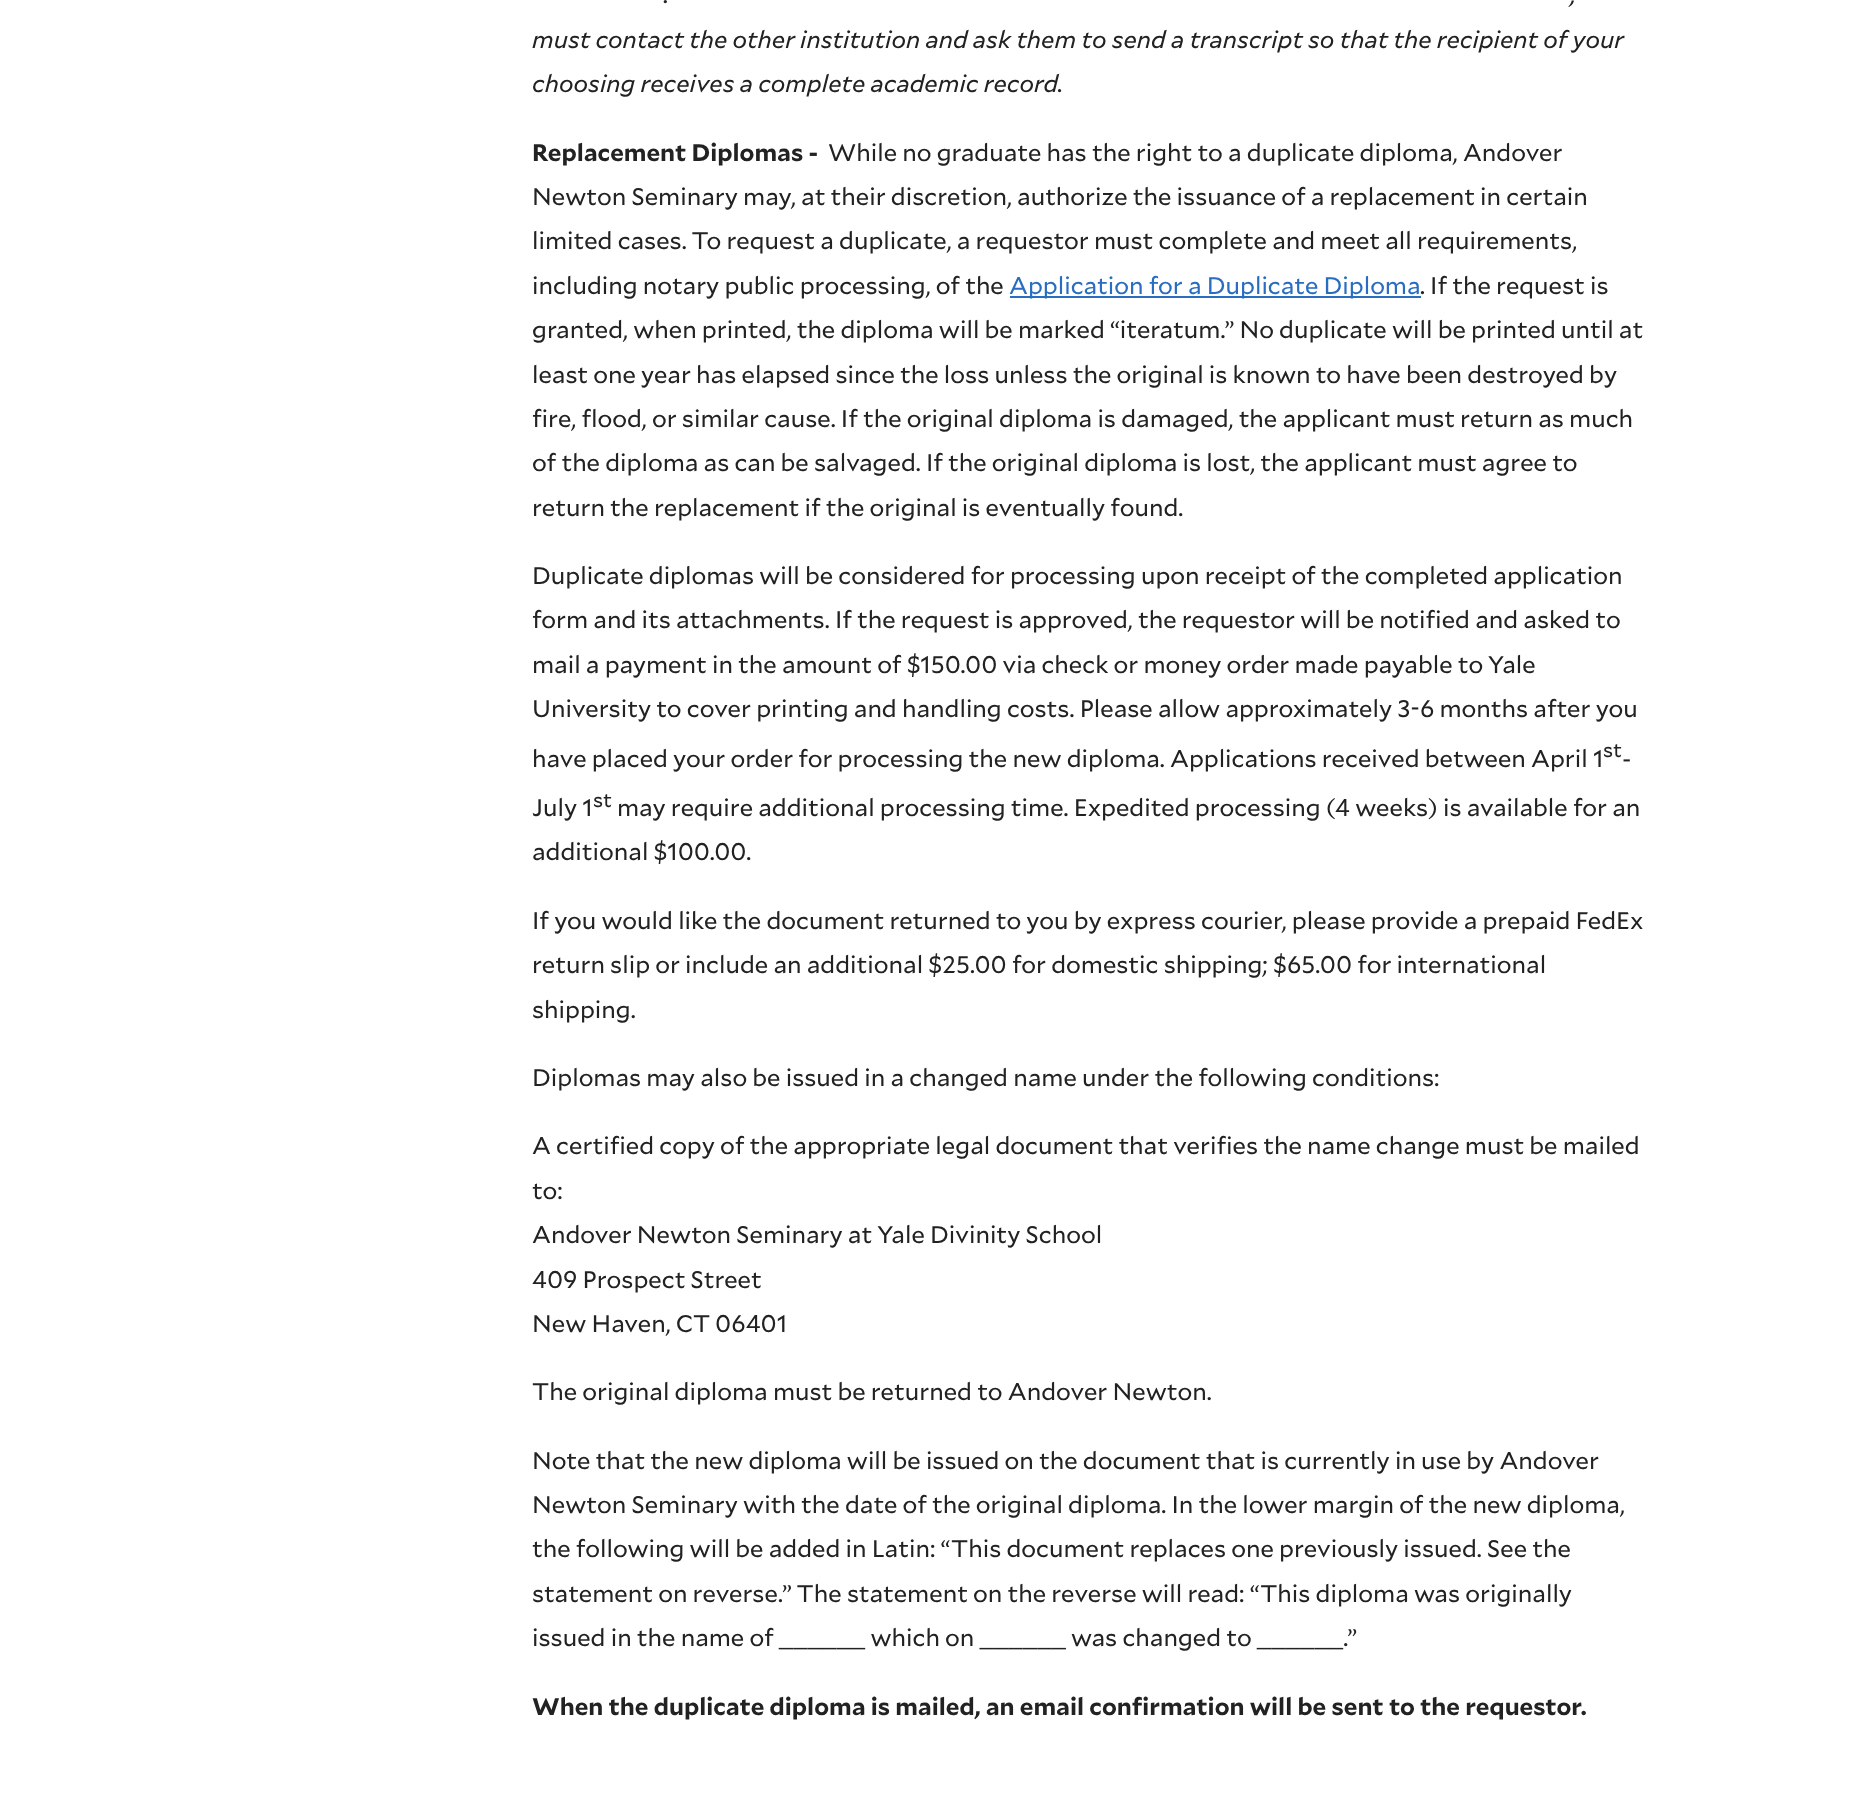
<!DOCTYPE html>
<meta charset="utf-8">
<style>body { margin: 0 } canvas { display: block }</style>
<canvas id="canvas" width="1865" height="1794"></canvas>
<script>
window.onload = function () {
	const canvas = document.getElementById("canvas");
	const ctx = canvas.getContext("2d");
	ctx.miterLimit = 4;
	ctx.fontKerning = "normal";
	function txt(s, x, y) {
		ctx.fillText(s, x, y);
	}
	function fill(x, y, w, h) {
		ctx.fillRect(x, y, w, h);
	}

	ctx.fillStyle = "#FFFFFF";
	fill(0, 0, 1865, 1794);
	ctx.fillStyle = "#286DC0";
	fill(1010, 296, 411, 2);
	ctx.font = "italic 24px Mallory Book";
	ctx.fillStyle = "#222222";
	txt(".", 664, 3);
	txt(",", 1571, 3);
	txt("must contact the other institution and ask them to send a transcript so that the recipient of your", 532, 48);
	txt("choosing receives a complete academic record.", 532, 92);
	ctx.font = "bold 24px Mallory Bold";
	txt("Replacement Diplomas -", 532, 161);
	ctx.font = "24px Mallory Book";
	txt("While no graduate has the right to a duplicate diploma, Andover", 828, 161);
	txt("Newton Seminary may, at their discretion, authorize the issuance of a replacement in certain", 532, 205);
	txt("limited cases. To request a duplicate, a requestor must complete and meet all requirements,", 532, 249);
	txt("including notary public processing, of the", 532, 294);
	ctx.fillStyle = "#286DC0";
	txt("Application for a Duplicate Diploma", 1009, 294);
	ctx.fillStyle = "#222222";
	txt(". If the request is", 1420, 294);
	txt("granted, when printed, the diploma will be marked “iteratum.” No duplicate will be printed until at", 532, 338);
	txt("least one year has elapsed since the loss unless the original is known to have been destroyed by", 532, 383);
	txt("fire, flood, or similar cause. If the original diploma is damaged, the applicant must return as much", 532, 427);
	txt("of the diploma as can be salvaged. If the original diploma is lost, the applicant must agree to", 532, 471);
	txt("return the replacement if the original is eventually found.", 532, 516);
	txt("Duplicate diplomas will be considered for processing upon receipt of the completed application", 532, 584);
	txt("form and its attachments. If the request is approved, the requestor will be notified and asked to", 532, 628);
	txt("mail a payment in the amount of $150.00 via check or money order made payable to Yale", 532, 673);
	txt("University to cover printing and handling costs. Please allow approximately 3-6 months after you", 532, 717);
	txt("have placed your order for processing the new diploma. Applications received between April 1", 532, 767);
	ctx.font = "20px Mallory Book";
	txt("st", 1603, 757);
	ctx.font = "24px Mallory Book";
	txt("-", 1622, 767);
	txt("July 1", 532, 816);
	ctx.font = "20px Mallory Book";
	txt("st", 593, 807);
	ctx.font = "24px Mallory Book";
	txt("may require additional processing time. Expedited processing (4 weeks) is available for an", 617, 816);
	txt("additional $100.00.", 532, 860);
	txt("If you would like the document returned to you by express courier, please provide a prepaid FedEx", 532, 929);
	txt("return slip or include an additional $25.00 for domestic shipping; $65.00 for international", 532, 973);
	txt("shipping.", 532, 1018);
	txt("Diplomas may also be issued in a changed name under the following conditions:", 532, 1086);
	txt("A certified copy of the appropriate legal document that verifies the name change must be mailed", 532, 1154);
	txt("to:", 532, 1199);
	txt("Andover Newton Seminary at Yale Divinity School", 532, 1243);
	txt("409 Prospect Street", 532, 1288);
	txt("New Haven, CT 06401", 532, 1332);
	txt("The original diploma must be returned to Andover Newton.", 532, 1400);
	txt("Note that the new diploma will be issued on the document that is currently in use by Andover", 532, 1469);
	txt("Newton Seminary with the date of the original diploma. In the lower margin of the new diploma,", 532, 1513);
	txt("the following will be added in Latin: “This document replaces one previously issued. See the", 532, 1557);
	txt("statement on reverse.” The statement on the reverse will read: “This diploma was originally", 532, 1602);
	txt("issued in the name of ______ which on ______ was changed to ______.”", 532, 1646);
	ctx.font = "bold 24px Mallory Bold";
	txt("When the duplicate diploma is mailed, an email confirmation will be sent to the requestor.", 532, 1715);
};
</script>
